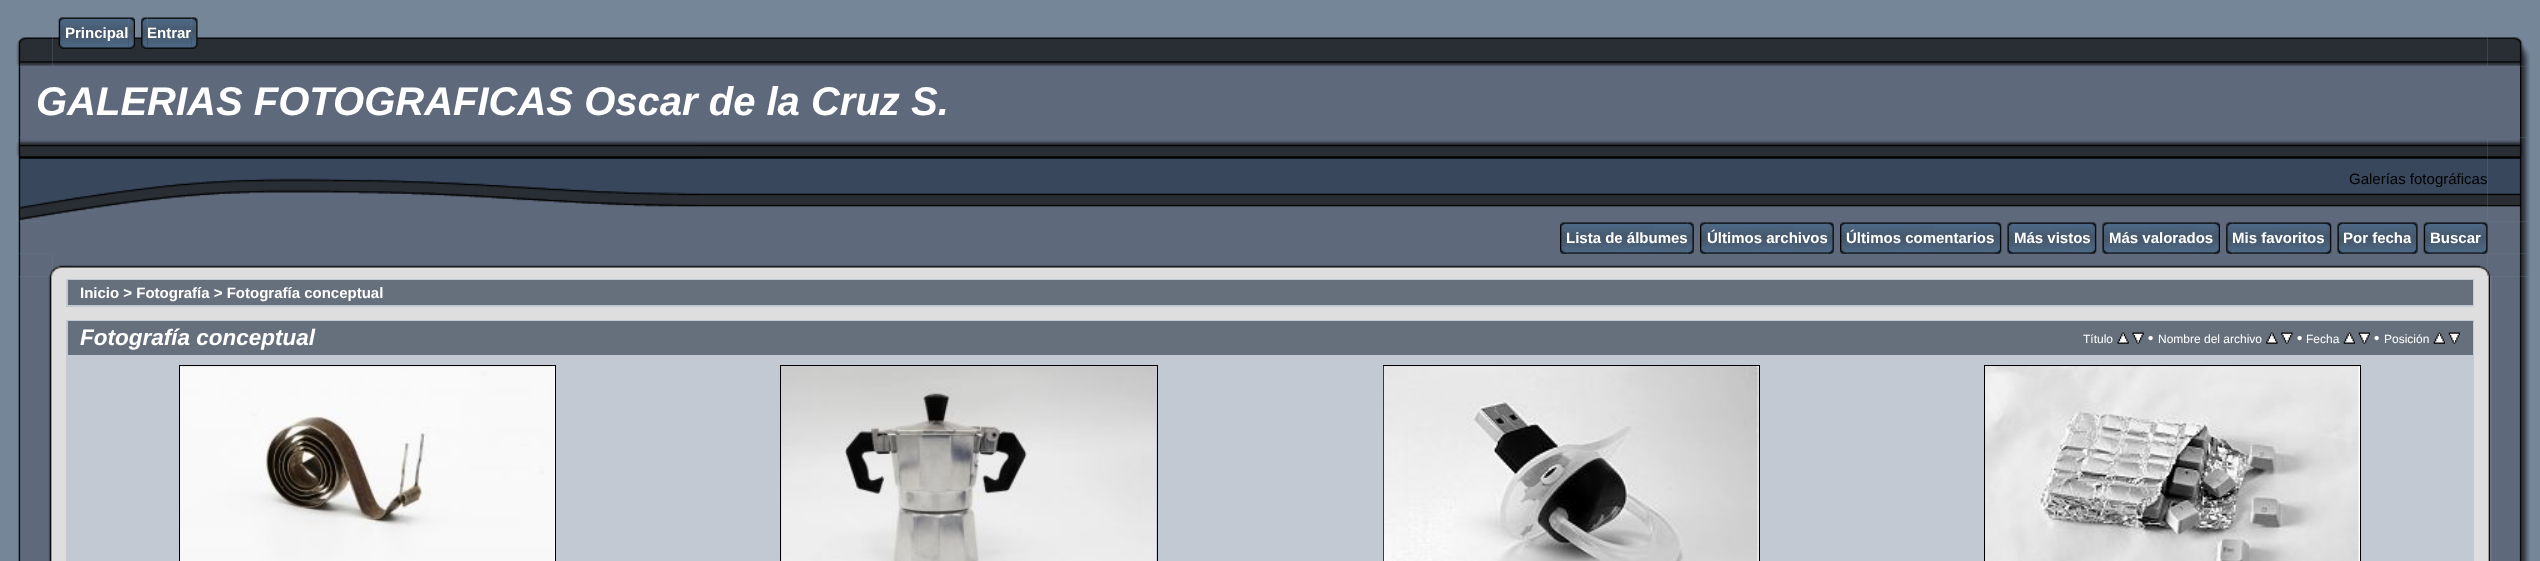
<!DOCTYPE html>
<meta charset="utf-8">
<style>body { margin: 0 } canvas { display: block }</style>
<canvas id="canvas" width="2540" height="561"></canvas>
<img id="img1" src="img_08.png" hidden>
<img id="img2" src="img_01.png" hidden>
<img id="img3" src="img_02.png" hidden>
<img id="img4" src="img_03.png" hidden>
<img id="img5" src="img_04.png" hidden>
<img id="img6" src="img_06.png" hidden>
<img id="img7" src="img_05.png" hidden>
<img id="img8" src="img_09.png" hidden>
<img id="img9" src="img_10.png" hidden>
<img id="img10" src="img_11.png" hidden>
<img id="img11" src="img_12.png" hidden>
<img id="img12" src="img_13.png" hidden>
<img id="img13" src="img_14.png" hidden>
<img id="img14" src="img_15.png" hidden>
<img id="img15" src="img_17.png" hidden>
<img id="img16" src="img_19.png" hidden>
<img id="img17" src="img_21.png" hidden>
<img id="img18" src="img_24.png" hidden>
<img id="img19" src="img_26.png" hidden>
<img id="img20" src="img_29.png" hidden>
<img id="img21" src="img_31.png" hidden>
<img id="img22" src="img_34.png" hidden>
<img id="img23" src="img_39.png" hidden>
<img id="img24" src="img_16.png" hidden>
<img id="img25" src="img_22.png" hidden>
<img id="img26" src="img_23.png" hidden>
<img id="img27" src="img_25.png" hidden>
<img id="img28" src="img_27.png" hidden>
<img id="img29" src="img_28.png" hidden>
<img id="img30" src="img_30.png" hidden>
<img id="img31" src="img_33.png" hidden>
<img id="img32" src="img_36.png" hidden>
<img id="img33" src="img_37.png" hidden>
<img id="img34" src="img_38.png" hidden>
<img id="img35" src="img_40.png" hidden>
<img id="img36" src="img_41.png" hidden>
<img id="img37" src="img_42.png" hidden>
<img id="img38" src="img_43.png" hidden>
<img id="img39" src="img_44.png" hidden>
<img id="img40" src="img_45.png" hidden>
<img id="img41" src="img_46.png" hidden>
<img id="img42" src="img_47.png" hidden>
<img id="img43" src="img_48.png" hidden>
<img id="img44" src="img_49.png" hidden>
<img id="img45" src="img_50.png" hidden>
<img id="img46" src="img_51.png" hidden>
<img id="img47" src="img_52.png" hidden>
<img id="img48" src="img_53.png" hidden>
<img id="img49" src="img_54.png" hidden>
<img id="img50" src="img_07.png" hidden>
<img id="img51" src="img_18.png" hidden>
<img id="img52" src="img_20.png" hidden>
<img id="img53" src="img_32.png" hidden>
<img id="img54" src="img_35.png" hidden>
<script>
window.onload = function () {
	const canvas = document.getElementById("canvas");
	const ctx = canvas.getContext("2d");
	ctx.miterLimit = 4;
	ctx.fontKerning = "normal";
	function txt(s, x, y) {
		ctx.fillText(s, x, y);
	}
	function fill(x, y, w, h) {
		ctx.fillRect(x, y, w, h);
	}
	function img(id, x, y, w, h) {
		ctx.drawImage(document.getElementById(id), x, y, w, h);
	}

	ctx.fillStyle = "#758698";
	fill(0, 0, 2540, 561);
	img("img1", 16, 37, 37, 30);
	img("img2", 52, 37, 2436, 29);
	img("img3", 58, 17, 7, 32);
	img("img4", 65, 17, 64, 32);
	img("img5", 128, 17, 7, 32);
	img("img6", 147, 17, 45, 32);
	img("img7", 141, 17, 7, 32);
	img("img8", 2487, 37, 43, 30);
	img("img9", 18, 66, 4, 72);
	ctx.fillStyle = "#5E697B";
	fill(22, 66, 2498, 72);
	img("img10", 2520, 66, 10, 72);
	img("img11", 16, 137, 684, 85);
	img("img12", 700, 138, 1788, 83);
	img("img13", 2487, 137, 43, 85);
	img("img14", 18, 221, 34, 33);
	fill(52, 221, 2436, 33);
	img("img15", 1566, 222, 122, 32);
	img("img16", 1706, 222, 122, 32);
	img("img17", 1846, 222, 149, 32);
	img("img18", 2013, 222, 77, 32);
	img("img19", 2108, 222, 106, 32);
	img("img20", 2232, 222, 93, 32);
	img("img21", 2343, 222, 69, 32);
	img("img22", 2430, 222, 52, 32);
	img("img23", 70, 253, 2400, 23);
	img("img24", 1560, 222, 7, 32);
	img("img24", 1700, 222, 7, 32);
	img("img24", 1840, 222, 7, 32);
	img("img25", 1995, 222, 7, 32);
	img("img26", 2007, 222, 7, 32);
	img("img25", 2090, 222, 7, 32);
	img("img27", 2102, 222, 7, 32);
	img("img28", 2213, 222, 7, 32);
	img("img29", 2226, 222, 7, 32);
	img("img25", 2325, 222, 7, 32);
	img("img30", 2337, 222, 7, 32);
	img("img31", 2423, 222, 7, 32);
	img("img32", 2488, 221, 42, 33);
	img("img33", 18, 253, 35, 24);
	img("img34", 52, 254, 18, 22);
	img("img35", 2470, 253, 18, 23);
	img("img36", 2487, 253, 43, 24);
	img("img37", 18, 276, 34, 285);
	ctx.fillStyle = "#DEDEDE";
	fill(52, 276, 2436, 285);
	ctx.fillStyle = "#C2C9D3";
	fill(66, 279, 2408, 28);
	ctx.fillStyle = "#66707C";
	fill(68, 280, 2405, 25);
	ctx.fillStyle = "#C2C9D3";
	fill(66, 320, 2408, 241);
	ctx.fillStyle = "#66707C";
	fill(68, 321, 2405, 34);
	img("img38", 2117, 332, 12, 12);
	img("img39", 2132, 332, 12, 12);
	img("img40", 2266, 332, 12, 12);
	img("img41", 2281, 332, 12, 12);
	img("img42", 2343, 332, 12, 12);
	img("img43", 2358, 332, 12, 12);
	img("img42", 2433, 332, 12, 12);
	img("img44", 2448, 332, 12, 12);
	ctx.strokeStyle = "#000000";
	ctx.strokeRect(179.5, 365.5, 376, 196);
	img("img45", 180, 366, 375, 195);
	ctx.strokeRect(780.5, 365.5, 377, 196);
	img("img46", 781, 366, 376, 195);
	ctx.strokeRect(1383.5, 365.5, 376, 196);
	img("img47", 1383, 366, 376, 195);
	ctx.strokeRect(1984.5, 365.5, 376, 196);
	img("img48", 1985, 366, 375, 195);
	img("img49", 2488, 276, 42, 285);
	ctx.font = "bold 15px Liberation Sans";
	ctx.fillStyle = "#FFFFFF";
	txt("Principal", 65, 38);
	txt("Entrar", 147, 38);
	img("img50", 191, 17, 7, 32);
	ctx.font = "italic bold 40px Liberation Sans";
	txt("GALERIAS FOTOGRAFICAS Oscar de la Cruz S.", 36, 115);
	ctx.font = "15px Liberation Sans";
	ctx.fillStyle = "#000000";
	txt("Galerías fotográficas", 2349, 184);
	ctx.font = "bold 15px Liberation Sans";
	ctx.fillStyle = "#FFFFFF";
	txt("Lista de álbumes", 1566, 243);
	img("img51", 1687, 222, 7, 32);
	txt("Últimos archivos", 1707, 243);
	img("img52", 1827, 222, 7, 32);
	txt("Últimos comentarios", 1846, 243);
	txt("Más vistos", 2014, 243);
	txt("Más valorados", 2109, 243);
	txt("Mis favoritos", 2232, 243);
	txt("Por fecha", 2343, 243);
	img("img53", 2411, 222, 7, 32);
	txt("Buscar", 2430, 243);
	img("img54", 2481, 222, 7, 32);
	txt("Inicio > Fotografía > Fotografía conceptual", 80, 298);
	ctx.font = "italic bold 22.5px Liberation Sans";
	txt("Fotografía conceptual", 80, 345);
	ctx.font = "12px Liberation Sans";
	txt("Título", 2083, 343);
	ctx.font = "bold 15px Liberation Sans";
	txt("•", 2148, 343);
	ctx.font = "12px Liberation Sans";
	txt("Nombre del archivo", 2158, 343);
	ctx.font = "bold 15px Liberation Sans";
	txt("•", 2297, 343);
	ctx.font = "12px Liberation Sans";
	txt("Fecha", 2306, 343);
	ctx.font = "bold 15px Liberation Sans";
	txt("•", 2374, 343);
	ctx.font = "12px Liberation Sans";
	txt("Posición", 2384, 343);
};
</script>
